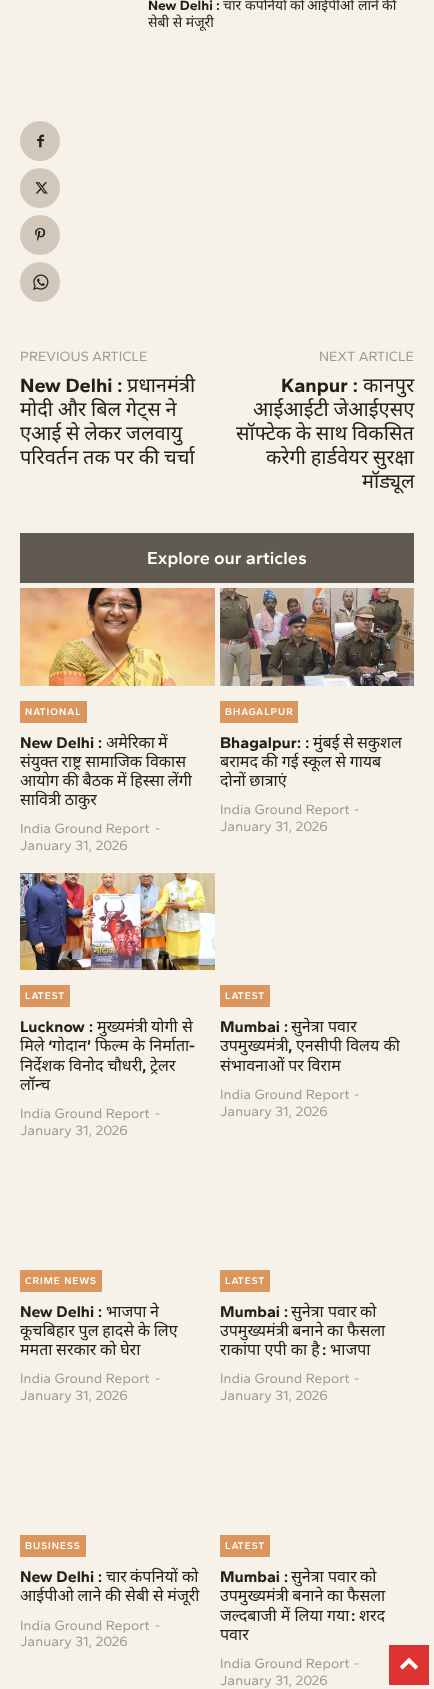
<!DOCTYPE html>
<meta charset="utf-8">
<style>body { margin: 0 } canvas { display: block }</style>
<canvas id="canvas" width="434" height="1689"></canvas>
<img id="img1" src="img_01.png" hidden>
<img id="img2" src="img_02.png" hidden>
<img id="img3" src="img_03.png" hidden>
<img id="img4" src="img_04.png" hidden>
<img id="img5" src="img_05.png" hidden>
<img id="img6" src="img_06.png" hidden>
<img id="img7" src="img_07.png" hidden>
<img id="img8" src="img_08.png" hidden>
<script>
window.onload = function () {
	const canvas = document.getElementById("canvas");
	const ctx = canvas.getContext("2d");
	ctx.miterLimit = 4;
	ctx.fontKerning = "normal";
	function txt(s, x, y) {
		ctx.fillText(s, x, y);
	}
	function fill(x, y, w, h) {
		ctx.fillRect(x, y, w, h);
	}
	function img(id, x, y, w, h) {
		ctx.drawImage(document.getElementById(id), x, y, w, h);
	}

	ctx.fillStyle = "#F6F2EA";
	fill(0, 0, 434, 1689);
	ctx.fillStyle = "#D1C8BB";
	ctx.beginPath();
	ctx.arc(40, 141, 20, 0, Math.PI * 2);
	ctx.fill();
	img("img1", 37, 134, 7, 14);
	ctx.beginPath();
	ctx.arc(40, 188, 20, 0, Math.PI * 2);
	ctx.fill();
	img("img2", 35, 182, 13, 12);
	ctx.beginPath();
	ctx.arc(40, 235, 20, 0, Math.PI * 2);
	ctx.fill();
	img("img3", 35, 227, 11, 14);
	ctx.beginPath();
	ctx.arc(40, 282, 20, 0, Math.PI * 2);
	ctx.fill();
	img("img4", 33, 274, 16, 16);
	ctx.fillStyle = "#615A50";
	fill(20, 533, 394, 50);
	img("img5", 20, 588, 195, 98);
	ctx.fillStyle = "#DB965E";
	fill(20, 701, 67, 22);
	img("img6", 220, 588, 194, 98);
	fill(220, 701, 78, 22);
	img("img7", 20, 873, 195, 97);
	fill(20, 985, 50, 22);
	fill(220, 985, 50, 22);
	fill(20, 1270, 82, 22);
	fill(220, 1270, 50, 22);
	fill(20, 1535, 66, 22);
	fill(220, 1535, 50, 22);
	ctx.fillStyle = "#DD3333";
	fill(389, 1645, 40, 40);
	img("img8", 400, 1657, 18, 13);
	ctx.font = "bold 14px Gantari";
	ctx.fillStyle = "#231F1C";
	txt("New Delhi :", 148, 10);
	ctx.font = "14px Noto Sans";
	txt("चार", 223, 10);
	txt("कंपनियों", 245, 10);
	txt("को", 290, 10);
	txt("आईपीओ", 307, 10);
	txt("लाने", 358, 10);
	txt("की", 382, 10);
	txt("सेबी से मंजूरी", 148, 27);
	ctx.font = "14px Gantari";
	ctx.fillStyle = "#A09894";
	txt("PREVIOUS ARTICLE", 20, 361);
	ctx.font = "bold 20px Gantari";
	ctx.fillStyle = "#231F1C";
	txt("New Delhi :", 20, 392);
	ctx.font = "20px Noto Sans";
	txt("प्रधानमंत्री", 127, 392);
	ctx.wordSpacing = "-0.5px";
	txt("मोदी और बिल गेट्स ने", 20, 416);
	txt("एआई से लेकर जलवायु", 20, 440);
	txt("परिवर्तन तक पर की चर्चा", 20, 464);
	ctx.wordSpacing = "0px";
	ctx.font = "14px Gantari";
	ctx.fillStyle = "#A09894";
	txt("NEXT ARTICLE", 319, 361);
	ctx.font = "bold 20px Gantari";
	ctx.fillStyle = "#231F1C";
	txt("Kanpur :", 281, 392);
	ctx.font = "20px Noto Sans";
	txt("कानपुर", 363, 392);
	ctx.wordSpacing = "-0.5px";
	txt("आईआईटी जेआईएसए", 253, 416);
	txt("सॉफ्टेक के साथ विकसित", 236, 440);
	txt("करेगी हार्डवेयर सुरक्षा", 266, 464);
	ctx.wordSpacing = "0px";
	txt("मॉड्यूल", 362, 488);
	ctx.font = "600 18px Gantari";
	ctx.fillStyle = "#FFFFFF";
	txt("Explore our articles", 147, 564);
	ctx.letterSpacing = "1px";
	ctx.font = "600 10px Gantari";
	txt("NATIONAL", 25, 715);
	ctx.letterSpacing = "0px";
	ctx.font = "bold 16px Gantari";
	ctx.fillStyle = "#231F1C";
	txt("New Delhi :", 20, 748);
	ctx.font = "16px Noto Sans";
	txt("अमेरिका", 106, 748);
	txt("में", 158, 748);
	ctx.wordSpacing = "-0.5px";
	txt("संयुक्त राष्ट्र सामाजिक विकास", 20, 767);
	txt("आयोग की बैठक में हिस्सा लेंगी", 20, 786);
	txt("सावित्री ठाकुर", 20, 805);
	ctx.wordSpacing = "0px";
	ctx.font = "14px Gantari";
	ctx.fillStyle = "#A09894";
	txt("India Ground Report", 20, 833);
	txt("-", 155, 833);
	txt("January 31, 2026", 20, 850);
	ctx.letterSpacing = "1px";
	ctx.font = "600 10px Gantari";
	ctx.fillStyle = "#FFFFFF";
	txt("BHAGALPUR", 225, 715);
	ctx.letterSpacing = "0px";
	ctx.font = "bold 16px Gantari";
	ctx.fillStyle = "#231F1C";
	txt("Bhagalpur: :", 220, 748);
	ctx.font = "16px Noto Sans";
	txt("मुंबई", 313, 748);
	txt("से", 343, 748);
	txt("सकुशल", 357, 748);
	ctx.wordSpacing = "-0.5px";
	txt("बरामद की गई स्कूल से गायब", 220, 767);
	txt("दोनों छात्राएं", 220, 786);
	ctx.wordSpacing = "0px";
	ctx.font = "14px Gantari";
	ctx.fillStyle = "#A09894";
	txt("India Ground Report", 220, 814);
	txt("-", 354, 814);
	txt("January 31, 2026", 220, 831);
	ctx.letterSpacing = "1px";
	ctx.font = "600 10px Gantari";
	ctx.fillStyle = "#FFFFFF";
	txt("LATEST", 25, 999);
	ctx.letterSpacing = "0px";
	ctx.font = "bold 16px Gantari";
	ctx.fillStyle = "#231F1C";
	txt("Lucknow :", 20, 1032);
	ctx.font = "16px Noto Sans";
	txt("मुख्यमंत्री", 97, 1032);
	txt("योगी", 151, 1032);
	txt("से", 182, 1032);
	txt("मिले", 20, 1051);
	txt("फिल्म के निर्माता", 95, 1051);
	ctx.font = "bold 16px Gantari";
	txt("‘", 48, 1051);
	ctx.font = "16px Noto Sans";
	txt("गोदान", 52, 1051);
	ctx.font = "bold 16px Gantari";
	txt("’", 87, 1051);
	txt("-", 189, 1051);
	ctx.font = "16px Noto Sans";
	txt("निर्देशक विनोद चौधरी", 20, 1071);
	ctx.font = "bold 16px Gantari";
	txt(",", 142, 1071);
	ctx.font = "16px Noto Sans";
	txt("ट्रेलर", 150, 1071);
	txt("लॉन्च", 20, 1090);
	ctx.font = "14px Gantari";
	ctx.fillStyle = "#A09894";
	txt("India Ground Report", 20, 1118);
	txt("-", 155, 1118);
	txt("January 31, 2026", 20, 1135);
	ctx.letterSpacing = "1px";
	ctx.font = "600 10px Gantari";
	ctx.fillStyle = "#FFFFFF";
	txt("LATEST", 225, 999);
	ctx.letterSpacing = "0px";
	ctx.font = "bold 16px Gantari";
	ctx.fillStyle = "#231F1C";
	txt("Mumbai :", 220, 1032);
	ctx.font = "16px Noto Sans";
	txt("सुनेत्रा", 291, 1032);
	txt("पवार", 328, 1032);
	txt("उपमुख्यमंत्री", 220, 1051);
	ctx.font = "bold 16px Gantari";
	txt(",", 288, 1051);
	ctx.font = "16px Noto Sans";
	txt("एनसीपी विलय की", 296, 1051);
	ctx.wordSpacing = "-0.5px";
	txt("संभावनाओं पर विराम", 220, 1071);
	ctx.wordSpacing = "0px";
	ctx.font = "14px Gantari";
	ctx.fillStyle = "#A09894";
	txt("India Ground Report", 220, 1099);
	txt("-", 354, 1099);
	txt("January 31, 2026", 220, 1116);
	ctx.letterSpacing = "1px";
	ctx.font = "600 10px Gantari";
	ctx.fillStyle = "#FFFFFF";
	txt("CRIME NEWS", 25, 1284);
	ctx.letterSpacing = "0px";
	ctx.font = "bold 16px Gantari";
	ctx.fillStyle = "#231F1C";
	txt("New Delhi :", 20, 1317);
	ctx.font = "16px Noto Sans";
	txt("भाजपा", 106, 1317);
	txt("ने", 150, 1317);
	ctx.wordSpacing = "-0.5px";
	txt("कूचबिहार पुल हादसे के लिए", 20, 1336);
	txt("ममता सरकार को घेरा", 20, 1355);
	ctx.wordSpacing = "0px";
	ctx.font = "14px Gantari";
	ctx.fillStyle = "#A09894";
	txt("India Ground Report", 20, 1383);
	txt("-", 155, 1383);
	txt("January 31, 2026", 20, 1400);
	ctx.letterSpacing = "1px";
	ctx.font = "600 10px Gantari";
	ctx.fillStyle = "#FFFFFF";
	txt("LATEST", 225, 1284);
	ctx.letterSpacing = "0px";
	ctx.font = "bold 16px Gantari";
	ctx.fillStyle = "#231F1C";
	txt("Mumbai :", 220, 1317);
	ctx.font = "16px Noto Sans";
	txt("सुनेत्रा", 291, 1317);
	txt("पवार", 328, 1317);
	txt("को", 360, 1317);
	ctx.wordSpacing = "-0.5px";
	txt("उपमुख्यमंत्री बनाने का फैसला", 220, 1336);
	ctx.wordSpacing = "0px";
	txt("राकांपा एपी का है", 220, 1355);
	ctx.font = "bold 16px Gantari";
	txt(":", 322, 1355);
	ctx.font = "16px Noto Sans";
	txt("भाजपा", 330, 1355);
	ctx.font = "14px Gantari";
	ctx.fillStyle = "#A09894";
	txt("India Ground Report", 220, 1383);
	txt("-", 354, 1383);
	txt("January 31, 2026", 220, 1400);
	ctx.letterSpacing = "1px";
	ctx.font = "600 10px Gantari";
	ctx.fillStyle = "#FFFFFF";
	txt("BUSINESS", 25, 1549);
	ctx.letterSpacing = "0px";
	ctx.font = "bold 16px Gantari";
	ctx.fillStyle = "#231F1C";
	txt("New Delhi :", 20, 1582);
	ctx.font = "16px Noto Sans";
	txt("चार", 106, 1582);
	txt("कंपनियों", 130, 1582);
	txt("को", 182, 1582);
	ctx.wordSpacing = "-0.5px";
	txt("आईपीओ लाने की सेबी से मंजूरी", 20, 1601);
	ctx.wordSpacing = "0px";
	ctx.font = "14px Gantari";
	ctx.fillStyle = "#A09894";
	txt("India Ground Report", 20, 1630);
	txt("-", 155, 1630);
	txt("January 31, 2026", 20, 1646);
	ctx.letterSpacing = "1px";
	ctx.font = "600 10px Gantari";
	ctx.fillStyle = "#FFFFFF";
	txt("LATEST", 225, 1549);
	ctx.letterSpacing = "0px";
	ctx.font = "bold 16px Gantari";
	ctx.fillStyle = "#231F1C";
	txt("Mumbai :", 220, 1582);
	ctx.font = "16px Noto Sans";
	txt("सुनेत्रा", 291, 1582);
	txt("पवार", 328, 1582);
	txt("को", 360, 1582);
	ctx.wordSpacing = "-0.5px";
	txt("उपमुख्यमंत्री बनाने का फैसला", 220, 1601);
	ctx.wordSpacing = "0px";
	txt("जल्दबाजी में लिया गया", 220, 1621);
	ctx.font = "bold 16px Gantari";
	txt(":", 351, 1621);
	ctx.font = "16px Noto Sans";
	txt("शरद", 359, 1621);
	txt("पवार", 220, 1640);
	ctx.font = "14px Gantari";
	ctx.fillStyle = "#A09894";
	txt("India Ground Report", 220, 1668);
	txt("-", 354, 1668);
	txt("January 31, 2026", 220, 1685);
};
</script>
